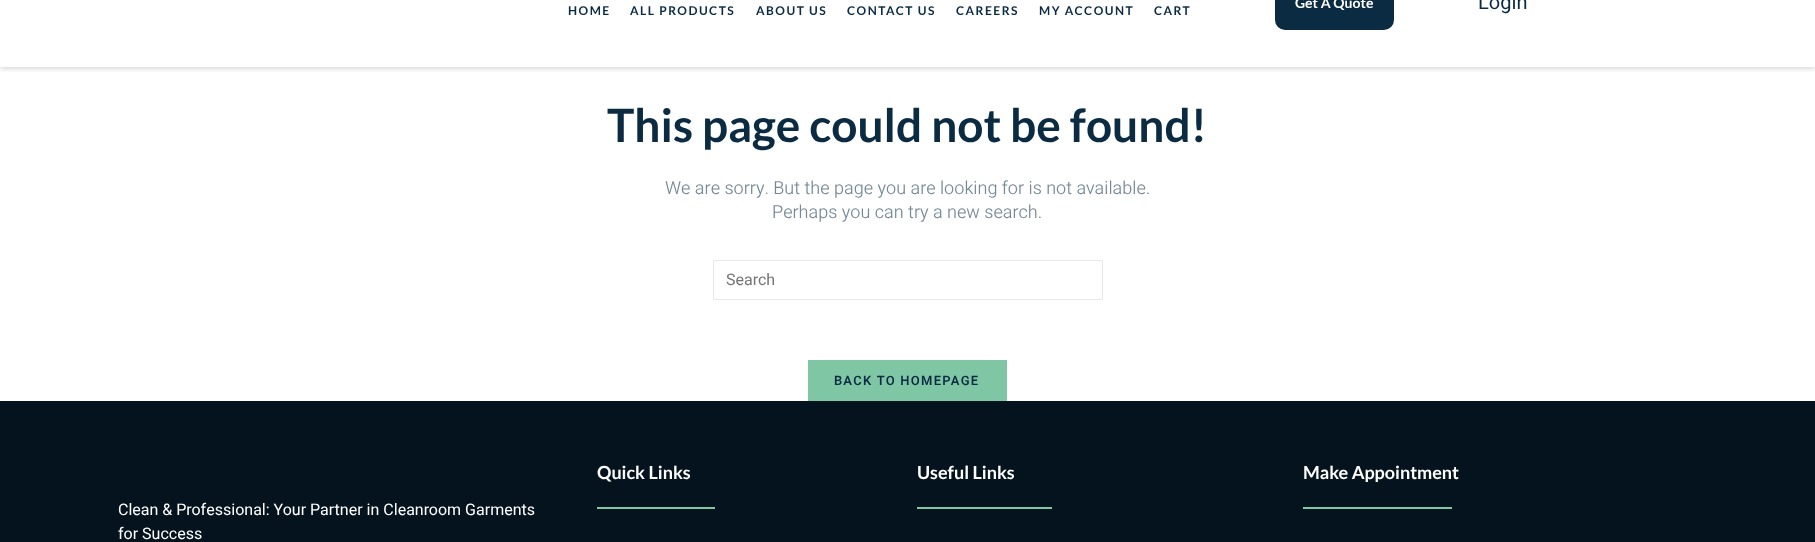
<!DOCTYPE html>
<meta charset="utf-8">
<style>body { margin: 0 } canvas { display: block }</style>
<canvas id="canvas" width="1815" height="542"></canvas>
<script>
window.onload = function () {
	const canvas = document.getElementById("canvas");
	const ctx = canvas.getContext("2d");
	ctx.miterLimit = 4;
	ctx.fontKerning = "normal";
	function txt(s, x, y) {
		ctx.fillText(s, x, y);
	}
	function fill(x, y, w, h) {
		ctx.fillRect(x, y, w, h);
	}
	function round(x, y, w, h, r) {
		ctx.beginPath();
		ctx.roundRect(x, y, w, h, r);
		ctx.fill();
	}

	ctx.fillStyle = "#FFFFFF";
	fill(0, 0, 1815, 542);
	ctx.save();
	ctx.beginPath();
	ctx.rect(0, 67, 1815, 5);
	ctx.clip();
	ctx.fillStyle = "rgba(0, 0, 0, 0.15)";
	ctx.filter = "blur(2.5px)";
	ctx.beginPath();
	ctx.rect(0, -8, 1815, 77);
	ctx.fill();
	ctx.filter = "none";
	ctx.restore();
	ctx.fillStyle = "#0B2B43";
	round(1275, -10, 119, 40, 10);
	ctx.strokeStyle = "#E7E7E7";
	ctx.strokeRect(713.5, 260.5, 389, 39);
	ctx.fillStyle = "#7FC6A4";
	fill(808, 360, 199, 41);
	ctx.fillStyle = "#04131E";
	fill(0, 401, 1815, 141);
	ctx.fillStyle = "#7FC6A4";
	fill(597, 507, 118, 2);
	fill(917, 507, 135, 2);
	fill(1303, 507, 149, 2);
	ctx.letterSpacing = "1.5px";
	ctx.font = "bold 12px Lato";
	ctx.fillStyle = "#0B2B43";
	txt("HOME", 568, 15);
	txt("ALL PRODUCTS", 630, 15);
	txt("ABOUT US", 756, 15);
	txt("CONTACT US", 847, 15);
	txt("CAREERS", 956, 15);
	txt("MY ACCOUNT", 1039, 15);
	txt("CART", 1154, 15);
	ctx.letterSpacing = "0px";
	ctx.font = "bold 14px Lato";
	ctx.fillStyle = "#FFFFFF";
	txt("Get A Quote", 1295, 8);
	ctx.font = "20px Heebo";
	ctx.fillStyle = "#0B2B43";
	txt("Login", 1478, 9);
	ctx.font = "bold 46px Lato";
	txt("This page could not be found!", 607, 142);
	ctx.font = "300 18px Heebo";
	ctx.fillStyle = "#758994";
	txt("We are sorry. But the page you are looking for is not available.", 665, 194);
	txt("Perhaps you can try a new search.", 772, 218);
	ctx.font = "16px Heebo";
	ctx.fillStyle = "#757575";
	txt("Search", 726, 285);
	ctx.letterSpacing = "1.25px";
	ctx.font = "600 13px Heebo";
	ctx.fillStyle = "#0B2B43";
	txt("BACK TO HOMEPAGE", 834, 385);
	ctx.letterSpacing = "0px";
	ctx.font = "bold 18px Lato";
	ctx.fillStyle = "#FFFFFF";
	txt("Quick Links", 597, 479);
	txt("Useful Links", 917, 479);
	txt("Make Appointment", 1303, 479);
	ctx.font = "16px Heebo";
	txt("Clean & Professional: Your Partner in Cleanroom Garments", 118, 515);
	txt("for Success", 118, 539);
};
</script>
